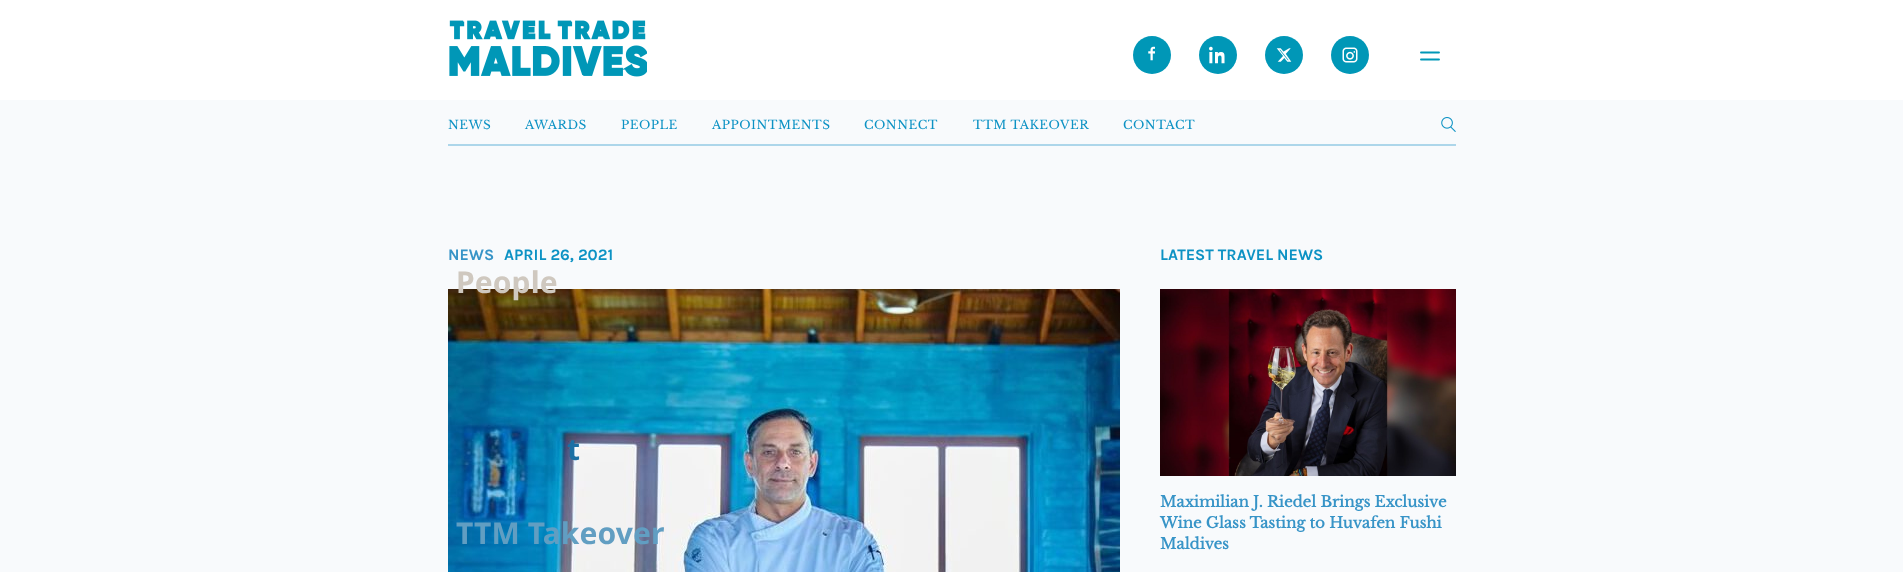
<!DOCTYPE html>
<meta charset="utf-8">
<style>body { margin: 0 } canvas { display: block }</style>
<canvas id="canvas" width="1903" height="572"></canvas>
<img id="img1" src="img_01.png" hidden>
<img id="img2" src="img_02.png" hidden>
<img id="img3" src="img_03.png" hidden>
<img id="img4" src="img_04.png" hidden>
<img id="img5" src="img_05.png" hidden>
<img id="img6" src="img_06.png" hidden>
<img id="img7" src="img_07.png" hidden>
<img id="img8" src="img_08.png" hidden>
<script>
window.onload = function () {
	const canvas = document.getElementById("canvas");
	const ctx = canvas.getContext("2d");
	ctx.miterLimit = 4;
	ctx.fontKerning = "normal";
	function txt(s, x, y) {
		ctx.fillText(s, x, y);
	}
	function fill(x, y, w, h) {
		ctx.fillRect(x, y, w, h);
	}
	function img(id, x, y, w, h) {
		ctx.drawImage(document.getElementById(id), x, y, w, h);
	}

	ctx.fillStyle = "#F8FAFC";
	fill(0, 0, 1903, 572);
	ctx.fillStyle = "#ADD6EA";
	fill(448, 144, 1008, 2);
	img("img1", 1441, 117, 15, 15);
	img("img2", 448, 289, 672, 283);
	img("img3", 1160, 289, 296, 187);
	ctx.fillStyle = "#FFFFFF";
	fill(0, 0, 1903, 100);
	img("img4", 449, 20, 198, 57);
	ctx.fillStyle = "#0097B7";
	ctx.beginPath();
	ctx.arc(1152, 55, 19, 0, Math.PI * 2);
	ctx.fill();
	img("img5", 1148, 46, 7, 15);
	ctx.beginPath();
	ctx.arc(1218, 55, 19, 0, Math.PI * 2);
	ctx.fill();
	img("img6", 1209, 46, 16, 18);
	ctx.beginPath();
	ctx.arc(1284, 55, 19, 0, Math.PI * 2);
	ctx.fill();
	img("img7", 1276, 48, 16, 14);
	ctx.beginPath();
	ctx.arc(1350, 55, 19, 0, Math.PI * 2);
	ctx.fill();
	img("img8", 1342, 47, 16, 16);
	ctx.beginPath();
	ctx.moveTo(1421, 52.5);
	ctx.lineTo(1439, 52.5);
	ctx.moveTo(1421, 59.5);
	ctx.lineTo(1439, 59.5);
	ctx.strokeStyle = "#0097B7";
	ctx.lineWidth = 1.9;
	ctx.lineCap = "round";
	ctx.stroke();
	ctx.letterSpacing = "0.5px";
	ctx.font = "12px Libre Baskerville";
	ctx.fillStyle = "#0C92C4";
	txt("NEWS", 448, 129);
	txt("AWARDS", 525, 129);
	txt("PEOPLE", 621, 129);
	txt("APPOINTMENTS", 712, 129);
	txt("CONNECT", 864, 129);
	txt("TTM TAKEOVER", 973, 129);
	txt("CONTACT", 1123, 129);
	ctx.letterSpacing = "0px";
	ctx.font = "bold 16px Karla";
	ctx.fillStyle = "#3794C7";
	txt("NEWS", 448, 260);
	ctx.fillStyle = "#0C92C4";
	txt("APRIL 26, 2021", 504, 260);
	txt("LATEST TRAVEL NEWS", 1160, 260);
	ctx.font = "bold 15px Libre Baskerville";
	ctx.fillStyle = "#3794C7";
	txt("Maximilian J. Riedel Brings Exclusive", 1160, 507);
	txt("Wine Glass Tasting to Huvafen Fushi", 1160, 528);
	txt("Maldives", 1160, 549);
	ctx.letterSpacing = "0.1px";
	ctx.font = "bold 30px Noto Sans";
	ctx.fillStyle = "#CFC8BF";
	txt("People", 456, 293);
	ctx.fillStyle = "#1970A4";
	txt("t", 567, 460);
	ctx.fillStyle = "#619EC2";
	txt("TTM Takeover", 456, 544);
};
</script>
